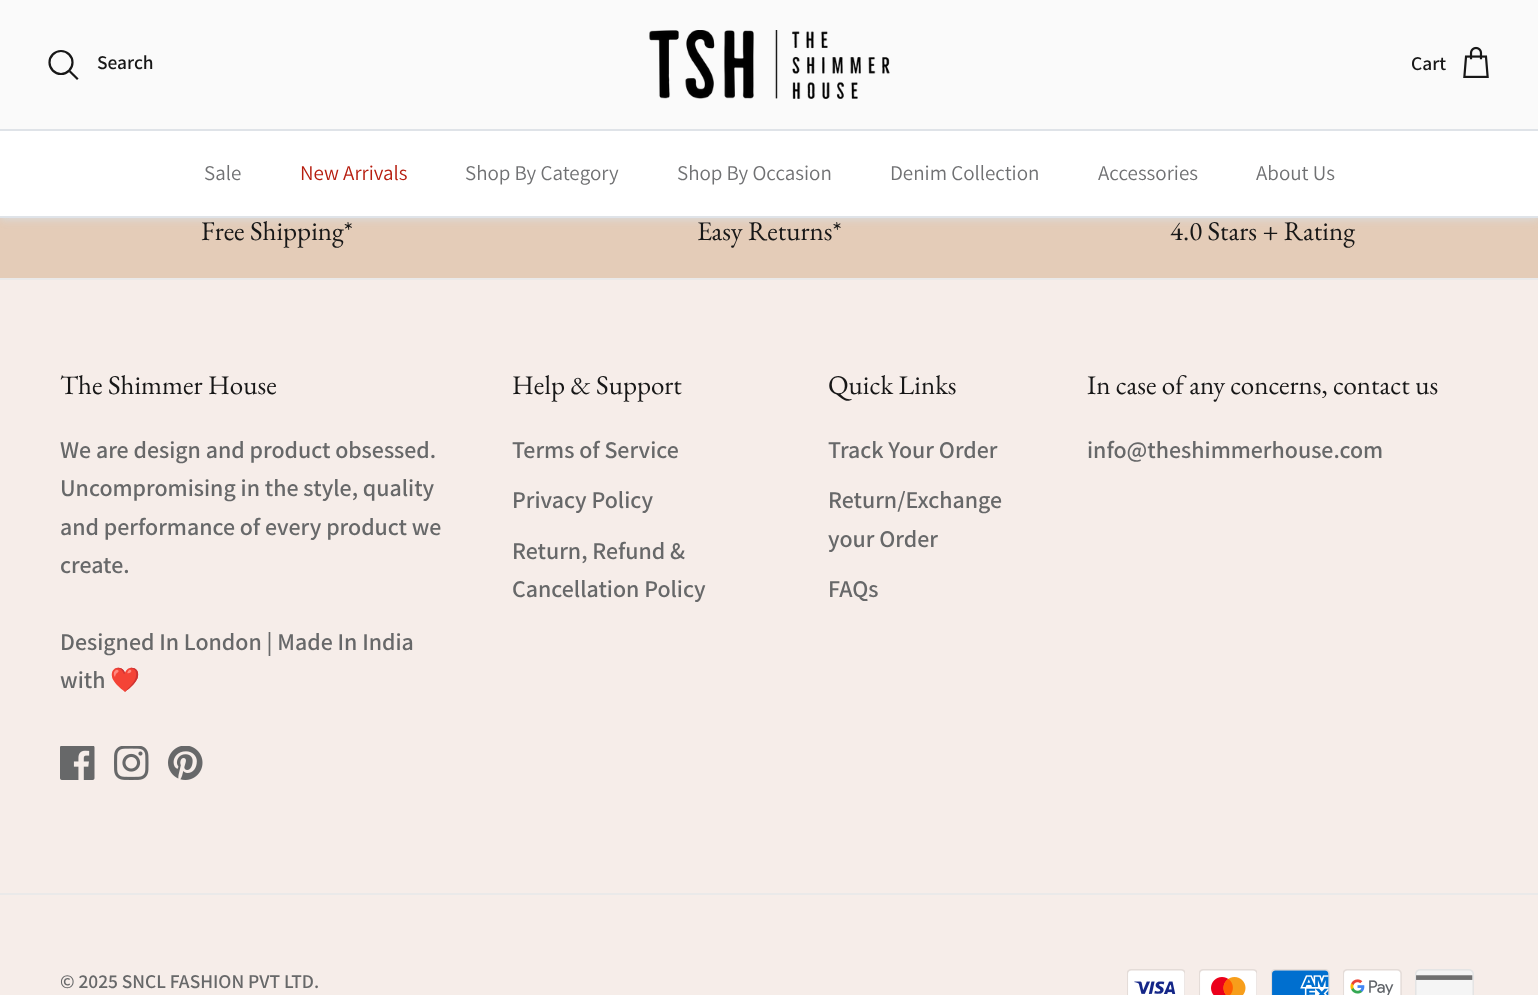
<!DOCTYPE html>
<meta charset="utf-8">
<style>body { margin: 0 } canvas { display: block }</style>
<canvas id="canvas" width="1538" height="995"></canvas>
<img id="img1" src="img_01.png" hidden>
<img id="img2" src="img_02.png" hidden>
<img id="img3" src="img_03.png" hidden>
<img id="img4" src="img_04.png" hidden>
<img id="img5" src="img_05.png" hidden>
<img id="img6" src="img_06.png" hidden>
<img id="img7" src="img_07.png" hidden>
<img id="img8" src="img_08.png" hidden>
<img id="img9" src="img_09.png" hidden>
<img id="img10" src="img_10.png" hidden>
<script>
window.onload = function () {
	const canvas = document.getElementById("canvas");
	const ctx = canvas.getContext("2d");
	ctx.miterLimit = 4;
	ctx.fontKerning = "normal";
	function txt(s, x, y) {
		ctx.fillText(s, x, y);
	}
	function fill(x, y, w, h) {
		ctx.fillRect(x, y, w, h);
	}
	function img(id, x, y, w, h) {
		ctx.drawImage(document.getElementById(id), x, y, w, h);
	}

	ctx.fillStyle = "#F6EDE9";
	fill(0, 0, 1538, 995);
	ctx.fillStyle = "#E4CCB8";
	fill(0, 218, 1538, 60);
	ctx.fillStyle = "#D7DDE1";
	ctx.filter = "blur(4.5px)";
	ctx.beginPath();
	ctx.rect(0, 132, 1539, 87);
	ctx.fill();
	ctx.filter = "none";
	ctx.fillStyle = "#FAFAFA";
	fill(0, 0, 1538, 129);
	ctx.fillStyle = "#DFE3E8";
	fill(0, 129, 1538, 2);
	ctx.beginPath();
	ctx.arc(61, 62.5, 11.5, 0, Math.PI * 2);
	ctx.strokeStyle = "#171717";
	ctx.lineWidth = 2.2;
	ctx.stroke();
	ctx.beginPath();
	ctx.moveTo(70.5, 72);
	ctx.lineTo(77, 78.5);
	ctx.lineCap = "square";
	ctx.stroke();
	img("img1", 649, 30, 241, 69);
	img("img2", 1463, 46, 26, 32);
	fill(0, 216, 1538, 2);
	ctx.fillStyle = "#FFFFFF";
	fill(0, 131, 1538, 85);
	ctx.fillStyle = "#EAE9E9";
	fill(0, 278, 1538, 2);
	img("img3", 60, 746, 35, 34);
	img("img4", 114, 746, 35, 34);
	img("img5", 168, 746, 35, 34);
	fill(0, 893, 1538, 2);
	img("img6", 1127, 969, 58, 26);
	img("img7", 1199, 969, 58, 26);
	img("img8", 1271, 969, 59, 26);
	img("img9", 1343, 969, 59, 26);
	img("img10", 1415, 969, 59, 26);
	ctx.font = "600 19.5px Assistant";
	ctx.fillStyle = "#171717";
	txt("Search", 97, 69);
	txt("Cart", 1411, 70);
	ctx.font = "21px Assistant";
	ctx.fillStyle = "#707173";
	txt("Sale", 204, 180);
	ctx.fillStyle = "#B61D0F";
	txt("New Arrivals", 300, 180);
	ctx.fillStyle = "#707173";
	txt("Shop By Category", 465, 180);
	txt("Shop By Occasion", 677, 180);
	txt("Denim Collection", 890, 180);
	txt("Accessories", 1098, 180);
	txt("About Us", 1256, 180);
	ctx.font = "27px EB Garamond";
	ctx.fillStyle = "#171717";
	txt("Free Shipping*", 201, 240);
	txt("Easy Returns*", 697, 240);
	txt("4.0 Stars + Rating", 1170, 240);
	txt("The Shimmer House", 60, 394);
	ctx.font = "600 24px Assistant";
	ctx.fillStyle = "#676869";
	txt("We are design and product obsessed.", 60, 458);
	txt("Uncompromising in the style, quality", 60, 496);
	txt("and performance of every product we", 60, 535);
	txt("create.", 60, 573);
	txt("Designed In London | Made In India", 60, 650);
	txt("with", 60, 688);
	ctx.font = "bold 24px Noto Color Emoji";
	txt("❤️", 110, 688);
	ctx.font = "27px EB Garamond";
	ctx.fillStyle = "#171717";
	txt("Help & Support", 512, 394);
	ctx.font = "600 24px Assistant";
	ctx.fillStyle = "#676869";
	txt("Terms of Service", 512, 458);
	txt("Privacy Policy", 512, 508);
	txt("Return, Refund &", 512, 559);
	txt("Cancellation Policy", 512, 597);
	ctx.font = "27px EB Garamond";
	ctx.fillStyle = "#171717";
	txt("Quick Links", 828, 394);
	ctx.font = "600 24px Assistant";
	ctx.fillStyle = "#676869";
	txt("Track Your Order", 828, 458);
	txt("Return/Exchange", 828, 508);
	txt("your Order", 828, 547);
	txt("FAQs", 828, 597);
	ctx.font = "27px EB Garamond";
	ctx.fillStyle = "#171717";
	txt("In case of any concerns, contact us", 1087, 394);
	ctx.font = "600 24px Assistant";
	ctx.fillStyle = "#676869";
	txt("info@theshimmerhouse.com", 1087, 458);
	ctx.font = "600 19.5px Assistant";
	txt("© 2025 SNCL FASHION PVT LTD.", 60, 988);
};
</script>
